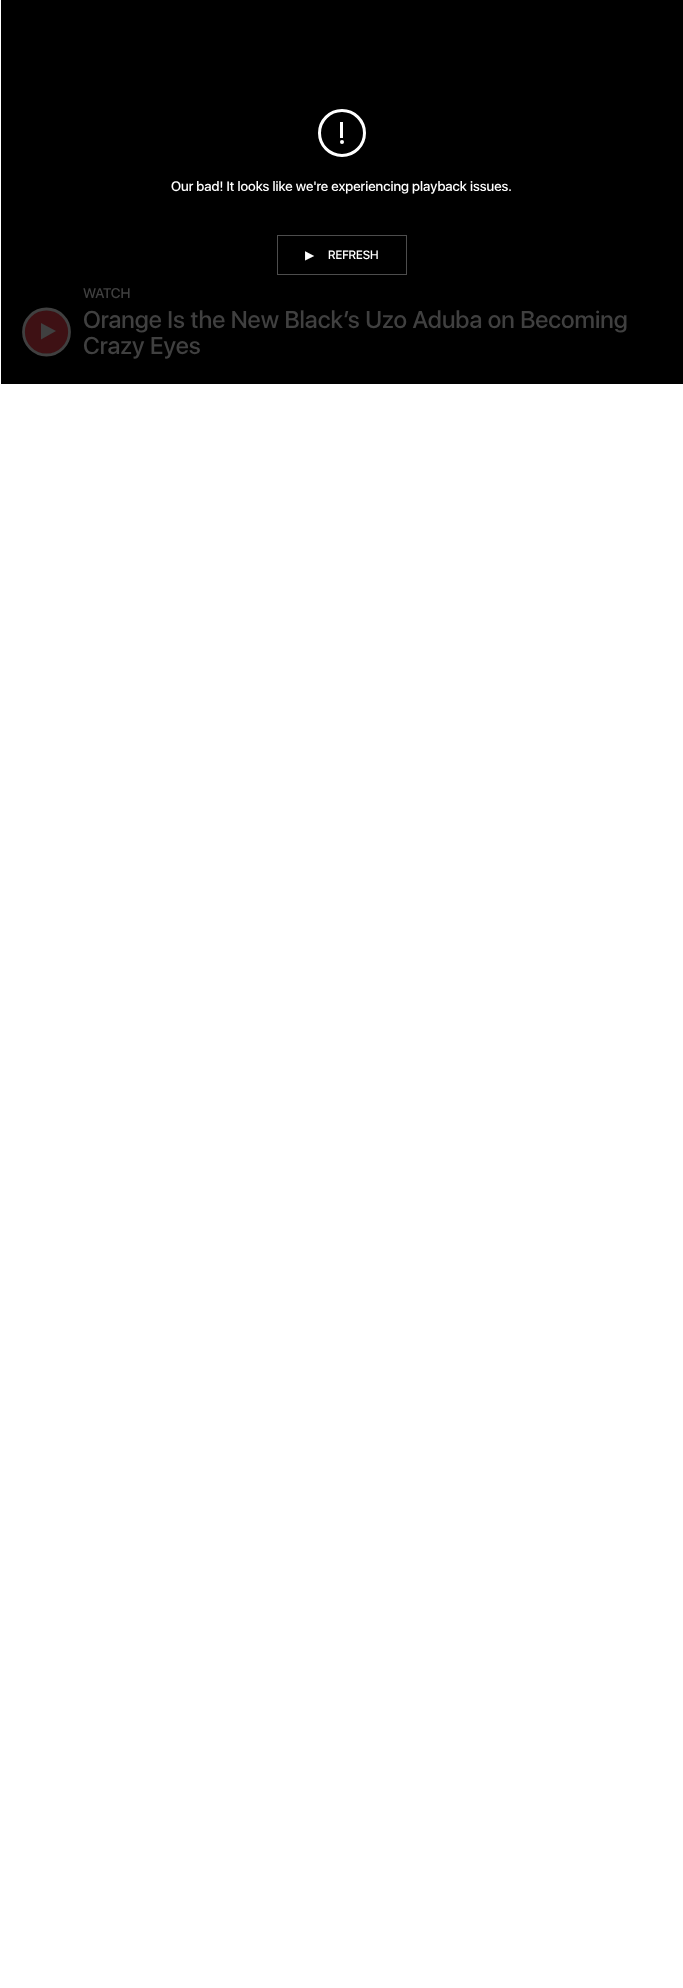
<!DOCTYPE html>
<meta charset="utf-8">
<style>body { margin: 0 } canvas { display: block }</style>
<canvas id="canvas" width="683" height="1988"></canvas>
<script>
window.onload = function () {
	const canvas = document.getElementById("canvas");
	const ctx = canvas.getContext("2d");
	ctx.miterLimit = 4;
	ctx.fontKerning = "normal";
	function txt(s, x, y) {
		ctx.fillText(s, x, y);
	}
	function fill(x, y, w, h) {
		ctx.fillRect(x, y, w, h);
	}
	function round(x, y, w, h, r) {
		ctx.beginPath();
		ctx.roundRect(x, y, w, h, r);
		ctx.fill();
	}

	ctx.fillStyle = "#FFFFFF";
	fill(0, 0, 683, 1988);
	ctx.fillStyle = "#000000";
	fill(1, 0, 682, 384);
	ctx.beginPath();
	ctx.arc(342, 133, 22.5, 0, Math.PI * 2);
	ctx.strokeStyle = "#FFFFFF";
	ctx.lineWidth = 3;
	ctx.stroke();
	ctx.fillStyle = "#FFFFFF";
	fill(340, 122, 3, 16);
	ctx.beginPath();
	ctx.arc(342, 142, 2, 0, Math.PI * 2);
	ctx.fill();
	ctx.strokeStyle = "#4D4D4D";
	ctx.lineWidth = 1;
	ctx.strokeRect(277.5, 235.5, 129, 39);
	ctx.fillStyle = "#3E1114";
	round(24, 310, 45, 44, 22);
	ctx.beginPath();
	ctx.arc(46.5, 332, 23, 0, Math.PI * 2);
	ctx.strokeStyle = "#404040";
	ctx.lineWidth = 2.8;
	ctx.stroke();
	ctx.fillStyle = "#404040";
	ctx.beginPath();
	ctx.moveTo(56, 331);
	ctx.lineTo(41, 339.5);
	ctx.lineTo(41, 323);
	ctx.closePath();
	ctx.fill();
	ctx.font = "500 13.6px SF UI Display";
	ctx.fillStyle = "#FFFFFF";
	txt("Our bad! It looks like we're experiencing playback issues.", 171, 191);
	ctx.font = "12px DejaVu Sans";
	txt("▶", 305, 259);
	ctx.font = "500 12px SF UI Display";
	txt("REFRESH", 328, 259);
	ctx.font = "500 14px SF UI Display";
	ctx.fillStyle = "#404040";
	txt("WATCH", 83, 298);
	ctx.font = "500 24px SF UI Display";
	txt("Orange Is the New Black’s Uzo Aduba on Becoming", 83, 328);
	txt("Crazy Eyes", 83, 354);
};
</script>
